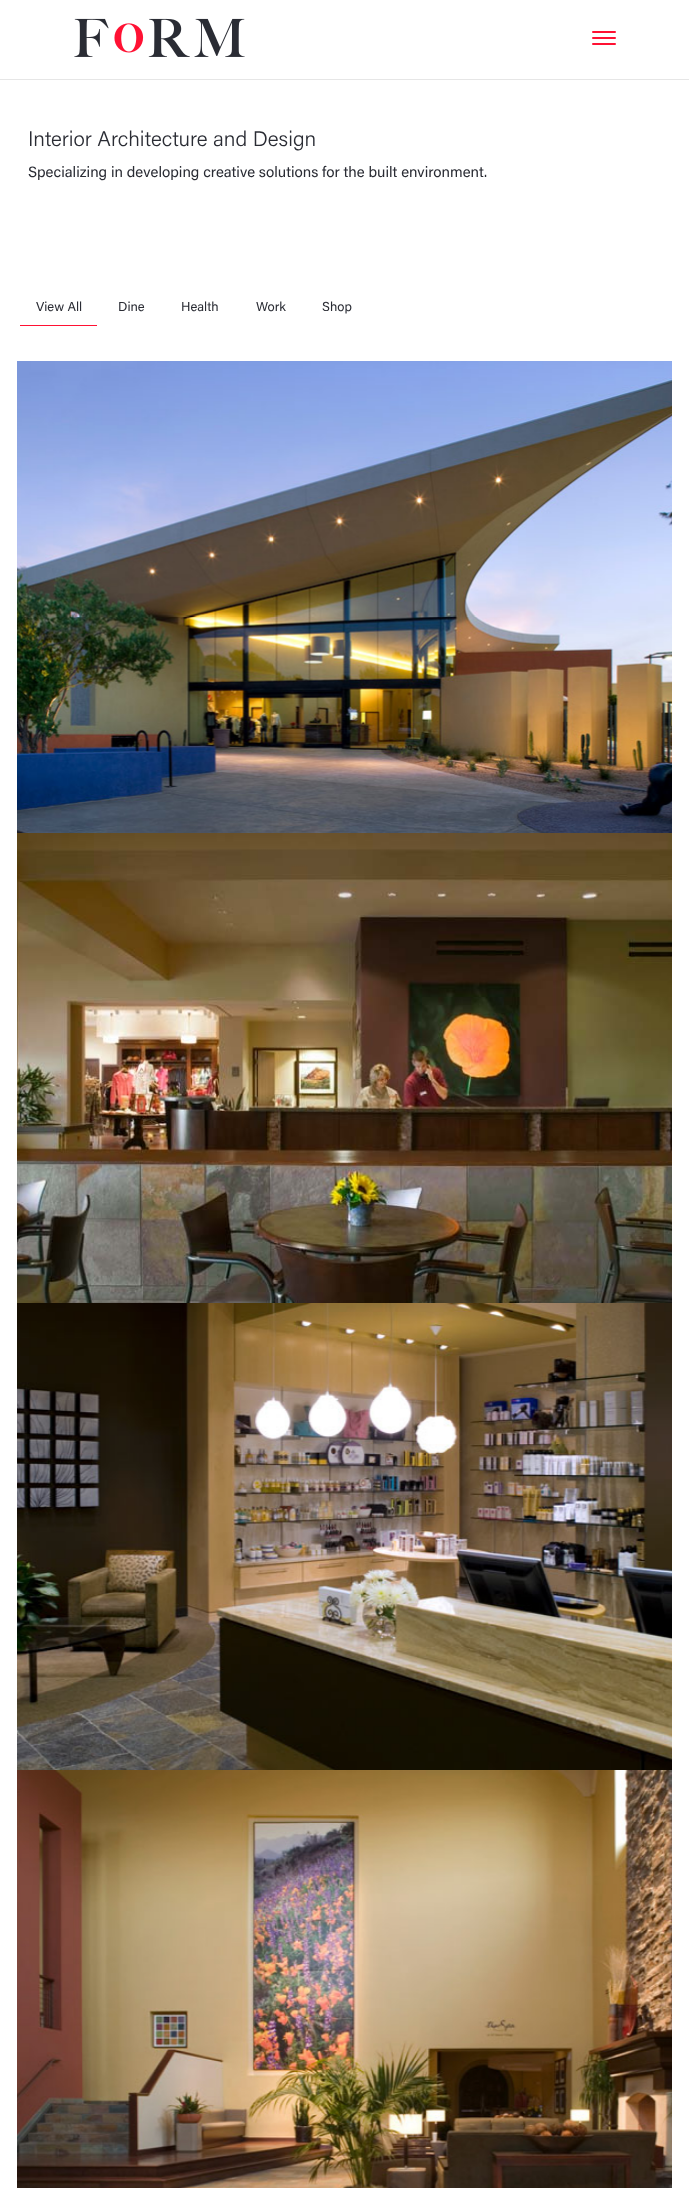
<!DOCTYPE html>
<meta charset="utf-8">
<style>body { margin: 0 } canvas { display: block }</style>
<canvas id="canvas" width="689" height="2188"></canvas>
<img id="img1" src="img_01.png" hidden>
<img id="img2" src="img_02.png" hidden>
<img id="img3" src="img_03.png" hidden>
<img id="img4" src="img_04.png" hidden>
<img id="img5" src="img_05.png" hidden>
<script>
window.onload = function () {
	const canvas = document.getElementById("canvas");
	const ctx = canvas.getContext("2d");
	ctx.miterLimit = 4;
	ctx.fontKerning = "normal";
	function txt(s, x, y) {
		ctx.fillText(s, x, y);
	}
	function fill(x, y, w, h) {
		ctx.fillRect(x, y, w, h);
	}
	function round(x, y, w, h, r) {
		ctx.beginPath();
		ctx.roundRect(x, y, w, h, r);
		ctx.fill();
	}
	function img(id, x, y, w, h) {
		ctx.drawImage(document.getElementById(id), x, y, w, h);
	}

	ctx.fillStyle = "#FFFFFF";
	fill(0, 0, 689, 2188);
	ctx.fillStyle = "#E6E6E6";
	fill(0, 79, 689, 1);
	img("img1", 74, 18, 171, 39);
	ctx.fillStyle = "#FF1133";
	round(592, 31, 24, 2, 1);
	round(592, 37, 24, 2, 1);
	round(592, 43, 24, 2, 1);
	fill(20, 325, 77, 1);
	img("img2", 17, 361, 655, 472);
	img("img3", 17, 833, 655, 470);
	img("img4", 17, 1303, 655, 467);
	img("img5", 17, 1770, 655, 418);
	ctx.font = "300 21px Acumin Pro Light";
	ctx.fillStyle = "#2A2C34";
	txt("Interior Architecture and Design", 28, 146);
	ctx.font = "15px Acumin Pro";
	txt("Specializing in developing creative solutions for the built environment.", 28, 177);
	ctx.font = "13px Acumin Pro";
	txt("View All", 36, 311);
	txt("Dine", 118, 311);
	txt("Health", 181, 311);
	txt("Work", 256, 311);
	txt("Shop", 322, 311);
};
</script>
